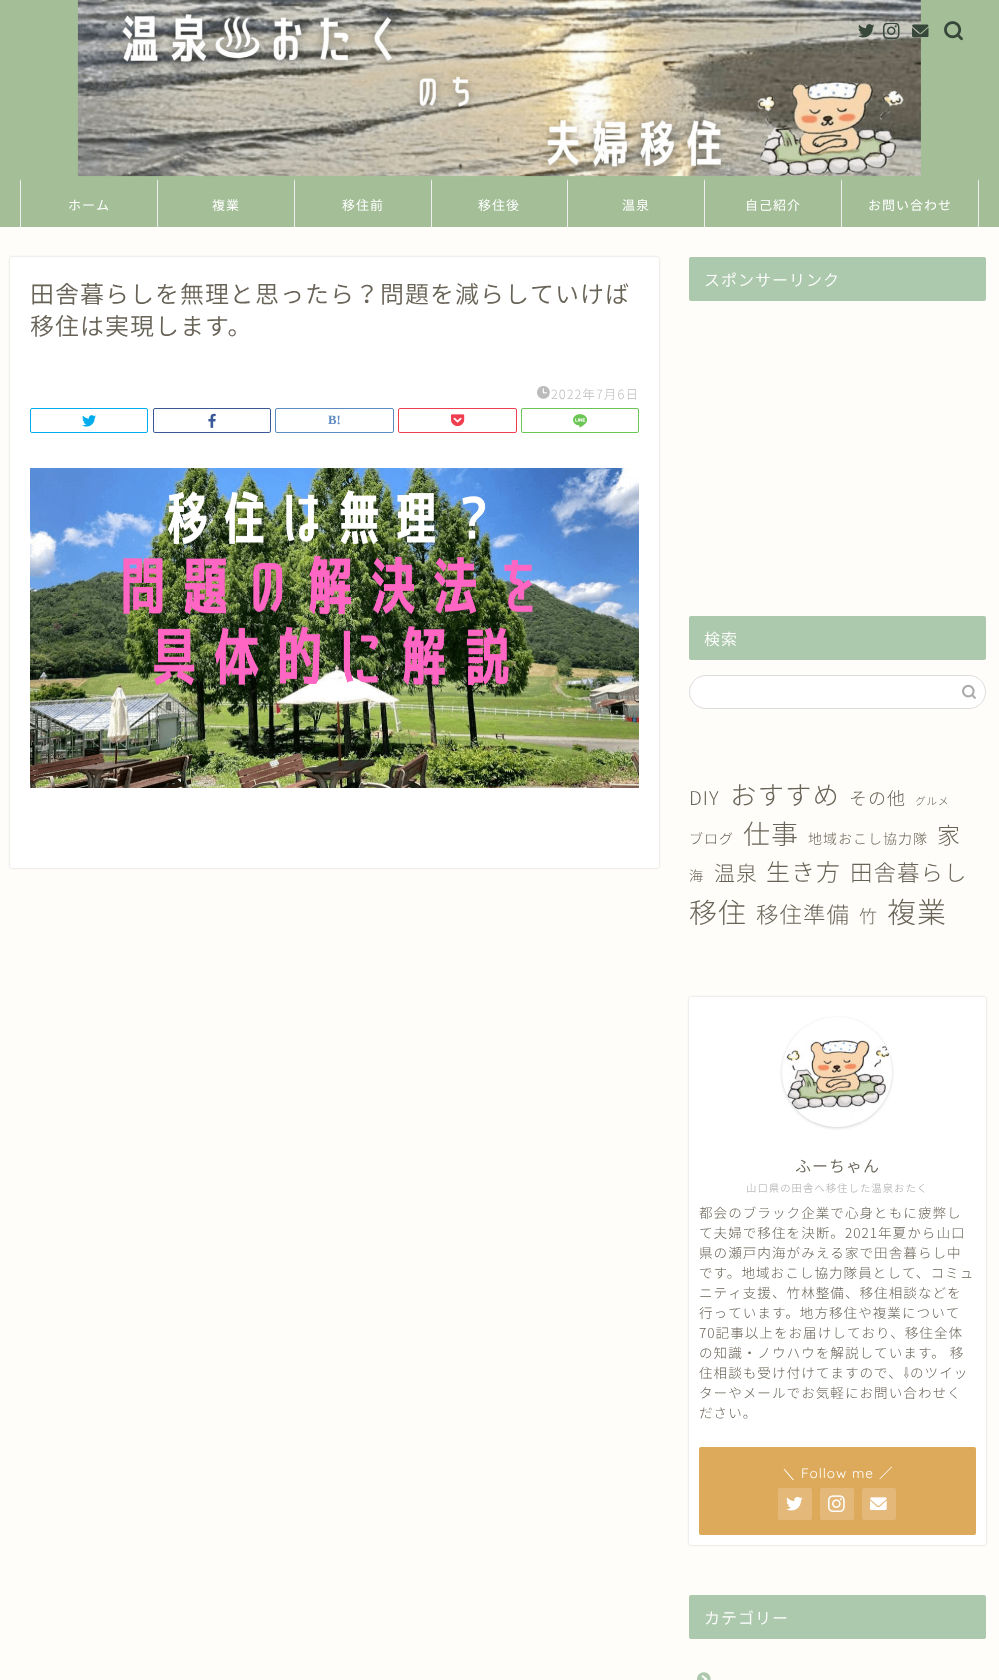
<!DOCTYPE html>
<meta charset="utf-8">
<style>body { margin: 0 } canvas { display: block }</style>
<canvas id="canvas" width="999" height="1680"></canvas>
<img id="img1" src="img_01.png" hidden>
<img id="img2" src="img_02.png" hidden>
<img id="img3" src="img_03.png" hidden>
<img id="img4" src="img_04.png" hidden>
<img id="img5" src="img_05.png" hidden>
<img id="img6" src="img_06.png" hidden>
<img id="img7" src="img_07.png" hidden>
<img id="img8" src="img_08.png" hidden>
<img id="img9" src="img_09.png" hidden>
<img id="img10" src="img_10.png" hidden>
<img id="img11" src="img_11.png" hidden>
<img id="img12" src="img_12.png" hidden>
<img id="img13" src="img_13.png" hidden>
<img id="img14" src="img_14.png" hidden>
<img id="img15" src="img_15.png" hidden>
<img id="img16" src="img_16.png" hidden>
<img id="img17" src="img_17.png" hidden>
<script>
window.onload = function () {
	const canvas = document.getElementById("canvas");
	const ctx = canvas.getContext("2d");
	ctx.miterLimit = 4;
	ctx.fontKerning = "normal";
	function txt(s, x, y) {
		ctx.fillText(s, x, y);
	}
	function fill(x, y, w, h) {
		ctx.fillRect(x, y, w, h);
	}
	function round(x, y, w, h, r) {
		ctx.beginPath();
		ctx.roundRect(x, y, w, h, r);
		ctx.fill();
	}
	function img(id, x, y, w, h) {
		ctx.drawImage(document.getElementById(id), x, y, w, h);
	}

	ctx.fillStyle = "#FFFDF9";
	fill(0, 0, 999, 1680);
	ctx.fillStyle = "#A4BF98";
	fill(0, 0, 999, 227);
	img("img1", 77, 0, 844, 177);
	img("img2", 858, 24, 17, 14);
	img("img3", 883, 23, 17, 16);
	img("img4", 912, 24, 17, 14);
	img("img5", 944, 21, 19, 20);
	ctx.fillStyle = "#EFEFEF";
	ctx.beginPath();
	ctx.moveTo(20, 227);
	ctx.lineTo(20, 179);
	ctx.lineTo(21, 181);
	ctx.lineTo(21, 227);
	ctx.closePath();
	ctx.fill();
	ctx.beginPath();
	ctx.moveTo(157, 227);
	ctx.lineTo(157, 179);
	ctx.lineTo(158, 181);
	ctx.lineTo(158, 227);
	ctx.closePath();
	ctx.fill();
	ctx.beginPath();
	ctx.moveTo(294, 227);
	ctx.lineTo(294, 179);
	ctx.lineTo(295, 181);
	ctx.lineTo(295, 227);
	ctx.closePath();
	ctx.fill();
	ctx.beginPath();
	ctx.moveTo(431, 227);
	ctx.lineTo(431, 179);
	ctx.lineTo(432, 181);
	ctx.lineTo(432, 227);
	ctx.closePath();
	ctx.fill();
	ctx.beginPath();
	ctx.moveTo(567, 227);
	ctx.lineTo(567, 179);
	ctx.lineTo(568, 181);
	ctx.lineTo(568, 227);
	ctx.closePath();
	ctx.fill();
	ctx.beginPath();
	ctx.moveTo(704, 227);
	ctx.lineTo(704, 179);
	ctx.lineTo(705, 181);
	ctx.lineTo(705, 227);
	ctx.closePath();
	ctx.fill();
	ctx.beginPath();
	ctx.moveTo(979, 179);
	ctx.lineTo(979, 227);
	ctx.lineTo(978, 227);
	ctx.lineTo(978, 181);
	ctx.closePath();
	ctx.fill();
	ctx.beginPath();
	ctx.moveTo(841, 227);
	ctx.lineTo(841, 179);
	ctx.lineTo(842, 181);
	ctx.lineTo(842, 227);
	ctx.closePath();
	ctx.fill();
	ctx.fillStyle = "rgba(0, 0, 0, 0.18)";
	ctx.filter = "blur(1px)";
	ctx.beginPath();
	ctx.roundRect(10, 257, 649, 611, 2);
	ctx.fill();
	ctx.filter = "none";
	ctx.fillStyle = "#FFFFFF";
	round(10, 257, 649, 611, 2);
	img("img6", 537, 386, 13, 13);
	ctx.beginPath();
	ctx.roundRect(30.5, 408.5, 117, 24, 1.5);
	ctx.strokeStyle = "#00ACEE";
	ctx.stroke();
	img("img7", 82, 415, 14, 12);
	ctx.beginPath();
	ctx.roundRect(153.5, 408.5, 117, 24, 1.5);
	ctx.strokeStyle = "#3B5998";
	ctx.stroke();
	img("img8", 208, 413, 8, 15);
	ctx.beginPath();
	ctx.roundRect(275.5, 408.5, 118, 24, 1.5);
	ctx.strokeStyle = "#5D8AC1";
	ctx.stroke();
	ctx.beginPath();
	ctx.roundRect(398.5, 408.5, 118, 24, 1.5);
	ctx.strokeStyle = "#F03E51";
	ctx.stroke();
	img("img9", 451, 414, 14, 13);
	ctx.beginPath();
	ctx.roundRect(521.5, 408.5, 117, 24, 1.5);
	ctx.strokeStyle = "#6CC655";
	ctx.stroke();
	img("img10", 573, 414, 15, 14);
	img("img11", 30, 468, 609, 320);
	ctx.fillStyle = "#ADC9AD";
	round(689, 257, 297, 44, 2);
	round(689, 616, 297, 44, 2);
	ctx.fillStyle = "#FFFFFF";
	ctx.beginPath();
	ctx.roundRect(689.5, 675.5, 296, 33, 16.5);
	ctx.fill();
	ctx.strokeStyle = "#DDDDDD";
	ctx.stroke();
	img("img12", 962, 684, 14, 15);
	ctx.fillStyle = "rgba(0, 0, 0, 0.18)";
	ctx.filter = "blur(1px)";
	ctx.beginPath();
	ctx.roundRect(689, 997, 297, 548, 2);
	ctx.fill();
	ctx.filter = "none";
	ctx.fillStyle = "#FFFFFF";
	round(689, 997, 297, 548, 2);
	ctx.fillStyle = "rgba(0, 0, 0, 0.18)";
	ctx.filter = "blur(1.5px)";
	ctx.beginPath();
	ctx.roundRect(782, 1018, 110, 110, 55);
	ctx.fill();
	ctx.filter = "none";
	ctx.fillStyle = "#FFFFFF";
	ctx.beginPath();
	ctx.arc(837, 1072, 55, 0, Math.PI * 2);
	ctx.fill();
	img("img13", 784, 1040, 106, 82);
	ctx.fillStyle = "#DDA95A";
	round(699, 1447, 277, 88, 2);
	ctx.fillStyle = "#E3B878";
	round(778, 1488, 34, 32, 2);
	img("img14", 786, 1496, 17, 15);
	round(820, 1488, 34, 32, 2);
	img("img15", 828, 1495, 17, 18);
	round(862, 1488, 34, 32, 2);
	img("img16", 870, 1497, 17, 14);
	ctx.fillStyle = "#ADC9AD";
	round(689, 1595, 297, 44, 2);
	img("img17", 697, 1672, 14, 8);
	ctx.letterSpacing = "1px";
	ctx.font = "13px Noto Sans JP";
	ctx.fillStyle = "#FFFFFF";
	txt("ホーム", 68, 210);
	txt("複業", 212, 210);
	txt("移住前", 342, 210);
	txt("移住後", 478, 210);
	txt("温泉", 622, 210);
	txt("自己紹介", 745, 210);
	txt("お問い合わせ", 868, 210);
	ctx.font = "300 24px Noto Sans JP";
	ctx.fillStyle = "#686357";
	txt("田舎暮らしを無理と思ったら？問題を減らしていけば", 30, 303);
	txt("移住は実現します。", 30, 335);
	ctx.font = "300 12.75px 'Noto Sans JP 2'";
	ctx.fillStyle = "#BBBBBB";
	txt("2022年7月6日", 551, 399);
	ctx.letterSpacing = "0px";
	ctx.font = "bold 12.75px Liberation Serif";
	ctx.fillStyle = "#5D8AC1";
	txt("B!", 328, 424);
	ctx.letterSpacing = "1px";
	ctx.font = "300 16px Noto Sans JP";
	ctx.fillStyle = "#FFFFFF";
	txt("スポンサーリンク", 704, 286);
	txt("検索", 704, 645);
	ctx.font = "300 19px 'Noto Sans JP 2'";
	ctx.fillStyle = "#686357";
	txt("DIY", 689, 805);
	ctx.font = "300 26.5px 'Noto Sans JP 2'";
	txt("おすすめ", 730, 805);
	ctx.font = "300 18px 'Noto Sans JP 2'";
	txt("その他", 849, 805);
	ctx.font = "300 10.5px 'Noto Sans JP 2'";
	txt("グルメ", 915, 805);
	ctx.font = "300 14px 'Noto Sans JP 2'";
	txt("ブログ", 689, 844);
	ctx.font = "300 27px 'Noto Sans JP 2'";
	txt("仕事", 743, 844);
	ctx.font = "300 14px 'Noto Sans JP 2'";
	txt("地域おこし協力隊", 808, 844);
	ctx.font = "300 23px 'Noto Sans JP 2'";
	txt("家", 937, 844);
	ctx.font = "300 14px 'Noto Sans JP 2'";
	txt("海", 689, 881);
	ctx.font = "300 21px 'Noto Sans JP 2'";
	txt("温泉", 714, 881);
	ctx.font = "300 24px 'Noto Sans JP 2'";
	txt("生き方", 766, 881);
	ctx.font = "300 22.5px 'Noto Sans JP 2'";
	txt("田舎暮らし", 850, 881);
	ctx.font = "300 28px 'Noto Sans JP 2'";
	txt("移住", 689, 923);
	ctx.font = "300 22.5px 'Noto Sans JP 2'";
	txt("移住準備", 756, 923);
	ctx.font = "300 18px 'Noto Sans JP 2'";
	txt("竹", 859, 923);
	ctx.font = "300 29px 'Noto Sans JP 2'";
	txt("複業", 887, 923);
	ctx.font = "300 16px Noto Sans JP";
	txt("ふーちゃん", 795, 1172);
	ctx.font = "300 10.4px 'Noto Sans JP 2'";
	ctx.fillStyle = "#A6A6A6";
	txt("山口県の田舎へ移住した温泉おたく", 746, 1192);
	ctx.font = "300 13.6px 'Noto Sans JP 2'";
	ctx.fillStyle = "#686357";
	txt("都会のブラック企業で心身ともに疲弊し", 699, 1218);
	txt("て夫婦で移住を決断。2021年夏から山口", 699, 1238);
	txt("県の瀬戸内海がみえる家で田舎暮らし中", 699, 1258);
	txt("です。地域おこし協力隊員として、コミュ", 699, 1278);
	txt("ニティ支援、竹林整備、移住相談などを", 699, 1298);
	txt("行っています。地方移住や複業について", 699, 1318);
	txt("70記事以上をお届けしており、移住全体", 699, 1338);
	txt("の知識・ノウハウを解説しています。 移", 699, 1358);
	txt("住相談も受け付けてますので、", 699, 1378);
	ctx.font = "13.6px IPAPGothic";
	txt("⇩", 903, 1378);
	ctx.font = "300 13.6px 'Noto Sans JP 2'";
	txt("のツイッ", 910, 1378);
	txt("ターやメールでお気軽にお問い合わせく", 699, 1398);
	txt("ださい。", 699, 1418);
	ctx.font = "500 13.6px WenQuanYi Zen Hei";
	ctx.fillStyle = "#FFFFFF";
	txt("＼", 782, 1478);
	ctx.font = "300 13.6px Quicksand";
	txt("Follow me", 801, 1478);
	ctx.font = "13.6px Noto Sans JP";
	txt("／", 879, 1478);
	ctx.font = "300 16px Noto Sans JP";
	txt("カテゴリー", 704, 1624);
};
</script>
